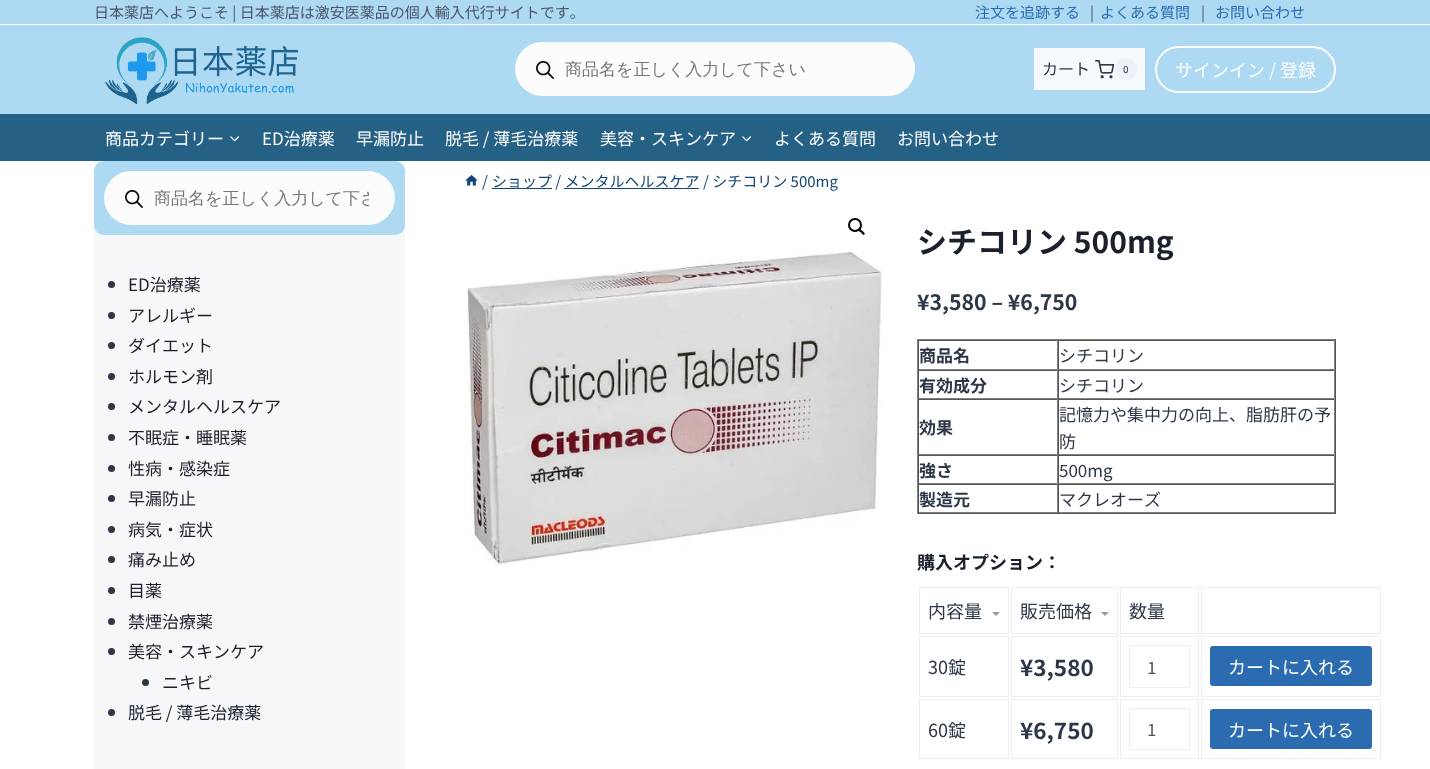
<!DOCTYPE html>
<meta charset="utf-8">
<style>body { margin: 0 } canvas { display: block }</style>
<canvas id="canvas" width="1430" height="769"></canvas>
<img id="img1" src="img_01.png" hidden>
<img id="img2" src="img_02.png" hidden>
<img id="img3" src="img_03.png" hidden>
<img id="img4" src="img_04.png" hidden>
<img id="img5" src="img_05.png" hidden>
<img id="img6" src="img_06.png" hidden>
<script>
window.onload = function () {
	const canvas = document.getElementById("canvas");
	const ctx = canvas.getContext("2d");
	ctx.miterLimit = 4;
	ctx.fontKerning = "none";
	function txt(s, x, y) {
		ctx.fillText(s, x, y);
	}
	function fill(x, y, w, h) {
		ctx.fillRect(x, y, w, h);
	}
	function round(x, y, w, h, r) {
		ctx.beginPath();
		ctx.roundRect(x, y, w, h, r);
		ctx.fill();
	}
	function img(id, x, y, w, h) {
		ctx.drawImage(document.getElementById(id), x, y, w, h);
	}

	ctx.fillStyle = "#FFFFFF";
	fill(0, 0, 1430, 769);
	ctx.fillStyle = "#ADD9F2";
	fill(0, 0, 1430, 24);
	fill(0, 25, 1430, 89);
	img("img1", 105, 37, 193, 68);
	ctx.fillStyle = "#FCFCFC";
	round(515, 42, 400, 54, 27);
	img("img2", 536, 61, 18, 18);
	ctx.fillStyle = "#F7FAFC";
	fill(1034, 48, 111, 42);
	img("img3", 1095, 60, 19, 19);
	ctx.fillStyle = "#EDF2F7";
	ctx.beginPath();
	ctx.arc(1126, 69, 11, 0, Math.PI * 2);
	ctx.fill();
	ctx.beginPath();
	ctx.roundRect(1156, 47, 179, 45, 22.5);
	ctx.strokeStyle = "#FFFFFF";
	ctx.lineWidth = 2;
	ctx.stroke();
	ctx.fillStyle = "#256185";
	fill(0, 114, 1430, 47);
	img("img4", 230, 136, 10, 6);
	img("img4", 742, 136, 10, 6);
	ctx.fillStyle = "#F6F7F8";
	fill(94, 161, 311, 608);
	ctx.fillStyle = "#ADD9F2";
	round(94, 161, 311, 74, 10);
	ctx.fillStyle = "#FCFCFC";
	round(104, 171, 291, 54, 27);
	img("img2", 125, 190, 18, 18);
	ctx.fillStyle = "#2D3748";
	ctx.beginPath();
	ctx.arc(111.5, 284.5, 3.5, 0, Math.PI * 2);
	ctx.fill();
	ctx.beginPath();
	ctx.arc(111.5, 315.5, 3.5, 0, Math.PI * 2);
	ctx.fill();
	ctx.beginPath();
	ctx.arc(111.5, 345.5, 3.5, 0, Math.PI * 2);
	ctx.fill();
	ctx.beginPath();
	ctx.arc(111.5, 376.5, 3.5, 0, Math.PI * 2);
	ctx.fill();
	ctx.beginPath();
	ctx.arc(111.5, 406.5, 3.5, 0, Math.PI * 2);
	ctx.fill();
	ctx.beginPath();
	ctx.arc(111.5, 437.5, 3.5, 0, Math.PI * 2);
	ctx.fill();
	ctx.beginPath();
	ctx.arc(111.5, 468.5, 3.5, 0, Math.PI * 2);
	ctx.fill();
	ctx.beginPath();
	ctx.arc(111.5, 498.5, 3.5, 0, Math.PI * 2);
	ctx.fill();
	ctx.beginPath();
	ctx.arc(111.5, 529.5, 3.5, 0, Math.PI * 2);
	ctx.fill();
	ctx.beginPath();
	ctx.arc(111.5, 559.5, 3.5, 0, Math.PI * 2);
	ctx.fill();
	ctx.beginPath();
	ctx.arc(111.5, 590.5, 3.5, 0, Math.PI * 2);
	ctx.fill();
	ctx.beginPath();
	ctx.arc(111.5, 621.5, 3.5, 0, Math.PI * 2);
	ctx.fill();
	ctx.beginPath();
	ctx.arc(111.5, 651.5, 3.5, 0, Math.PI * 2);
	ctx.fill();
	ctx.beginPath();
	ctx.arc(145.5, 682.5, 3.5, 0, Math.PI * 2);
	ctx.fill();
	ctx.beginPath();
	ctx.arc(111.5, 712.5, 3.5, 0, Math.PI * 2);
	ctx.fill();
	img("img5", 465, 175, 13, 11);
	ctx.fillStyle = "#134575";
	fill(492, 188, 60, 1);
	fill(564, 188, 135, 1);
	ctx.beginPath();
	ctx.arc(855, 225, 6, 0, Math.PI * 2);
	ctx.strokeStyle = "#000000";
	ctx.stroke();
	ctx.fillStyle = "#000000";
	ctx.beginPath();
	ctx.moveTo(858.5, 229);
	ctx.bezierCurveTo(860, 228, 861.5, 230.5, 862.5, 231);
	ctx.bezierCurveTo(863, 231.5, 865.5, 233.5, 864.5, 234.5);
	ctx.bezierCurveTo(863, 236, 861.5, 233, 861, 232.5);
	ctx.bezierCurveTo(860, 232, 857.5, 230, 858.5, 229);
	ctx.closePath();
	ctx.fill();
	img("img6", 464, 251, 419, 315);
	ctx.fillStyle = "#808080";
	fill(917, 339, 419, 1);
	ctx.fillStyle = "#555555";
	fill(1335, 339, 1, 175);
	fill(917, 513, 419, 1);
	ctx.fillStyle = "#808080";
	fill(917, 339, 1, 175);
	ctx.fillStyle = "#555555";
	fill(918, 340, 417, 1);
	ctx.fillStyle = "#808080";
	fill(1057, 340, 1, 30);
	fill(918, 369, 140, 1);
	ctx.fillStyle = "#555555";
	fill(918, 340, 1, 30);
	ctx.fillStyle = "#808080";
	fill(1334, 340, 1, 30);
	fill(1058, 369, 277, 1);
	ctx.fillStyle = "#555555";
	fill(1058, 340, 1, 30);
	fill(918, 370, 417, 1);
	ctx.fillStyle = "#808080";
	fill(1057, 370, 1, 29);
	fill(918, 398, 140, 1);
	ctx.fillStyle = "#555555";
	fill(918, 370, 1, 29);
	ctx.fillStyle = "#808080";
	fill(1334, 370, 1, 29);
	fill(1058, 398, 277, 1);
	ctx.fillStyle = "#555555";
	fill(1058, 370, 1, 29);
	fill(918, 399, 417, 1);
	ctx.fillStyle = "#808080";
	fill(1057, 399, 1, 56);
	fill(918, 454, 140, 1);
	ctx.fillStyle = "#555555";
	fill(918, 399, 1, 56);
	ctx.fillStyle = "#808080";
	fill(1334, 399, 1, 56);
	fill(1058, 454, 277, 1);
	ctx.fillStyle = "#555555";
	fill(1058, 399, 1, 56);
	fill(918, 455, 417, 1);
	ctx.fillStyle = "#808080";
	fill(1057, 455, 1, 29);
	fill(918, 483, 140, 1);
	ctx.fillStyle = "#555555";
	fill(918, 455, 1, 29);
	ctx.fillStyle = "#808080";
	fill(1334, 455, 1, 29);
	fill(1058, 483, 277, 1);
	ctx.fillStyle = "#555555";
	fill(1058, 455, 1, 29);
	fill(918, 484, 417, 1);
	ctx.fillStyle = "#808080";
	fill(1057, 484, 1, 29);
	fill(918, 512, 140, 1);
	ctx.fillStyle = "#555555";
	fill(918, 484, 1, 29);
	ctx.fillStyle = "#808080";
	fill(1334, 484, 1, 29);
	fill(1058, 512, 277, 1);
	ctx.fillStyle = "#555555";
	fill(1058, 484, 1, 29);
	ctx.strokeStyle = "#EEEEEE";
	ctx.lineWidth = 1;
	ctx.strokeRect(919.5, 587.5, 89, 46);
	ctx.fillStyle = "#9A9A9A";
	ctx.beginPath();
	ctx.moveTo(992, 612);
	ctx.lineTo(1000, 612);
	ctx.lineTo(996, 616);
	ctx.closePath();
	ctx.fill();
	ctx.strokeRect(1011.5, 587.5, 106, 46);
	ctx.beginPath();
	ctx.moveTo(1101, 612);
	ctx.lineTo(1109, 612);
	ctx.lineTo(1105, 616);
	ctx.closePath();
	ctx.fill();
	ctx.strokeRect(1120.5, 587.5, 78, 46);
	ctx.strokeRect(1201.5, 587.5, 179, 46);
	ctx.strokeRect(919.5, 636.5, 89, 60);
	ctx.strokeRect(1011.5, 636.5, 106, 60);
	ctx.strokeRect(1120.5, 636.5, 78, 60);
	ctx.strokeRect(1129.5, 645.5, 60, 42);
	ctx.strokeRect(1201.5, 636.5, 179, 60);
	ctx.fillStyle = "#2B6CB0";
	round(1210, 646, 162, 40, 3);
	ctx.strokeRect(919.5, 699.5, 89, 59);
	ctx.strokeRect(1011.5, 699.5, 106, 59);
	ctx.strokeRect(1120.5, 699.5, 78, 59);
	ctx.strokeRect(1129.5, 708.5, 60, 41);
	ctx.strokeRect(1201.5, 699.5, 179, 59);
	round(1210, 709, 162, 40, 3);
	ctx.font = "15px Noto Sans JP";
	ctx.fillStyle = "#4A5568";
	txt("日本薬店へようこそ | 日本薬店は激安医薬品の個人輸入代行サイトです。", 94, 18);
	ctx.fillStyle = "#2B6CB0";
	txt("注文を追跡する", 975, 18);
	ctx.fillStyle = "#4A5568";
	txt("|", 1090, 18);
	ctx.fillStyle = "#2B6CB0";
	txt("よくある質問", 1100, 18);
	ctx.fillStyle = "#4A5568";
	txt("|", 1201, 18);
	ctx.fillStyle = "#2B6CB0";
	txt("お問い合わせ", 1215, 18);
	ctx.font = "500 17px WenQuanYi Zen Hei";
	ctx.fillStyle = "#777777";
	txt("商品名を正しく入力して下さい", 565, 75);
	ctx.font = "16px Noto Sans JP";
	ctx.fillStyle = "#2D3748";
	txt("カート", 1042, 75);
	ctx.font = "10px Noto Sans JP";
	txt("0", 1123, 73);
	ctx.font = "18px Noto Sans JP";
	ctx.fillStyle = "#FFFFFF";
	txt("サインイン / 登録", 1175, 77);
	ctx.font = "17px Noto Sans JP";
	txt("商品カテゴリー", 105, 145);
	txt("ED治療薬", 262, 145);
	txt("早漏防止", 356, 145);
	txt("脱毛 / 薄毛治療薬", 445, 145);
	txt("美容・スキンケア", 600, 145);
	txt("よくある質問", 774, 145);
	txt("お問い合わせ", 897, 145);
	ctx.save();
	ctx.beginPath();
	ctx.rect(154, 187, 215, 23);
	ctx.clip();
	ctx.font = "500 17px WenQuanYi Zen Hei";
	ctx.fillStyle = "#777777";
	txt("商品名を正しく入力して下さ", 154, 204);
	ctx.restore();
	ctx.fillStyle = "#1A202C";
	txt("ED治療薬", 128, 291);
	txt("アレルギー", 128, 322);
	txt("ダイエット", 128, 352);
	txt("ホルモン剤", 128, 383);
	txt("メンタルヘルスケア", 128, 413);
	txt("不眠症・睡眠薬", 128, 444);
	txt("性病・感染症", 128, 475);
	txt("早漏防止", 128, 505);
	txt("病気・症状", 128, 536);
	txt("痛み止め", 128, 566);
	txt("目薬", 128, 597);
	txt("禁煙治療薬", 128, 628);
	txt("美容・スキンケア", 128, 658);
	txt("ニキビ", 162, 689);
	txt("脱毛 / 薄毛治療薬", 128, 719);
	ctx.font = "15px Noto Sans JP";
	ctx.fillStyle = "#134575";
	txt("/", 482, 187);
	txt("ショップ / メンタルヘルスケア / シチコリン 500mg", 492, 187);
	ctx.font = "bold 30px Noto Sans JP";
	ctx.fillStyle = "#1A202C";
	txt("シチコリン 500mg", 917, 253);
	ctx.font = "bold 21.25px Noto Sans JP";
	ctx.fillStyle = "#2D3748";
	txt("¥3,580 – ¥6,750", 917, 310);
	ctx.font = "bold 17px Noto Sans JP";
	txt("商品名", 919, 362);
	ctx.font = "17px Noto Sans JP";
	txt("シチコリン", 1059, 362);
	ctx.font = "bold 17px Noto Sans JP";
	txt("有効成分", 919, 392);
	ctx.font = "17px Noto Sans JP";
	txt("シチコリン", 1059, 392);
	ctx.font = "bold 17px Noto Sans JP";
	txt("効果", 919, 434);
	ctx.font = "17px Noto Sans JP";
	txt("記憶力や集中力の向上、脂肪肝の予", 1059, 421);
	txt("防", 1059, 448);
	ctx.font = "bold 17px Noto Sans JP";
	txt("強さ", 919, 477);
	ctx.font = "17px Noto Sans JP";
	txt("500mg", 1059, 477);
	ctx.font = "bold 17px Noto Sans JP";
	txt("製造元", 919, 506);
	ctx.font = "17px Noto Sans JP";
	txt("マクレオーズ", 1059, 506);
	ctx.font = "bold 18px Noto Sans JP";
	ctx.fillStyle = "#1A202C";
	txt("購入オプション：", 917, 569);
	ctx.font = "18px Noto Sans JP";
	ctx.fillStyle = "#2D3748";
	txt("内容量", 928, 618);
	txt("販売価格", 1020, 618);
	txt("数量", 1129, 618);
	txt("30錠", 928, 674);
	ctx.font = "bold 22.5px Noto Sans JP";
	txt("¥3,580", 1020, 676);
	ctx.font = "17px Noto Sans JP";
	ctx.fillStyle = "#4A5568";
	txt("1", 1147, 674);
	ctx.font = "18px Noto Sans JP";
	ctx.fillStyle = "#FFFFFF";
	txt("カートに入れる", 1228, 674);
	ctx.fillStyle = "#2D3748";
	txt("60錠", 928, 737);
	ctx.font = "bold 22.5px Noto Sans JP";
	txt("¥6,750", 1020, 739);
	ctx.font = "17px Noto Sans JP";
	ctx.fillStyle = "#4A5568";
	txt("1", 1147, 736);
	ctx.font = "18px Noto Sans JP";
	ctx.fillStyle = "#FFFFFF";
	txt("カートに入れる", 1228, 737);
};
</script>
